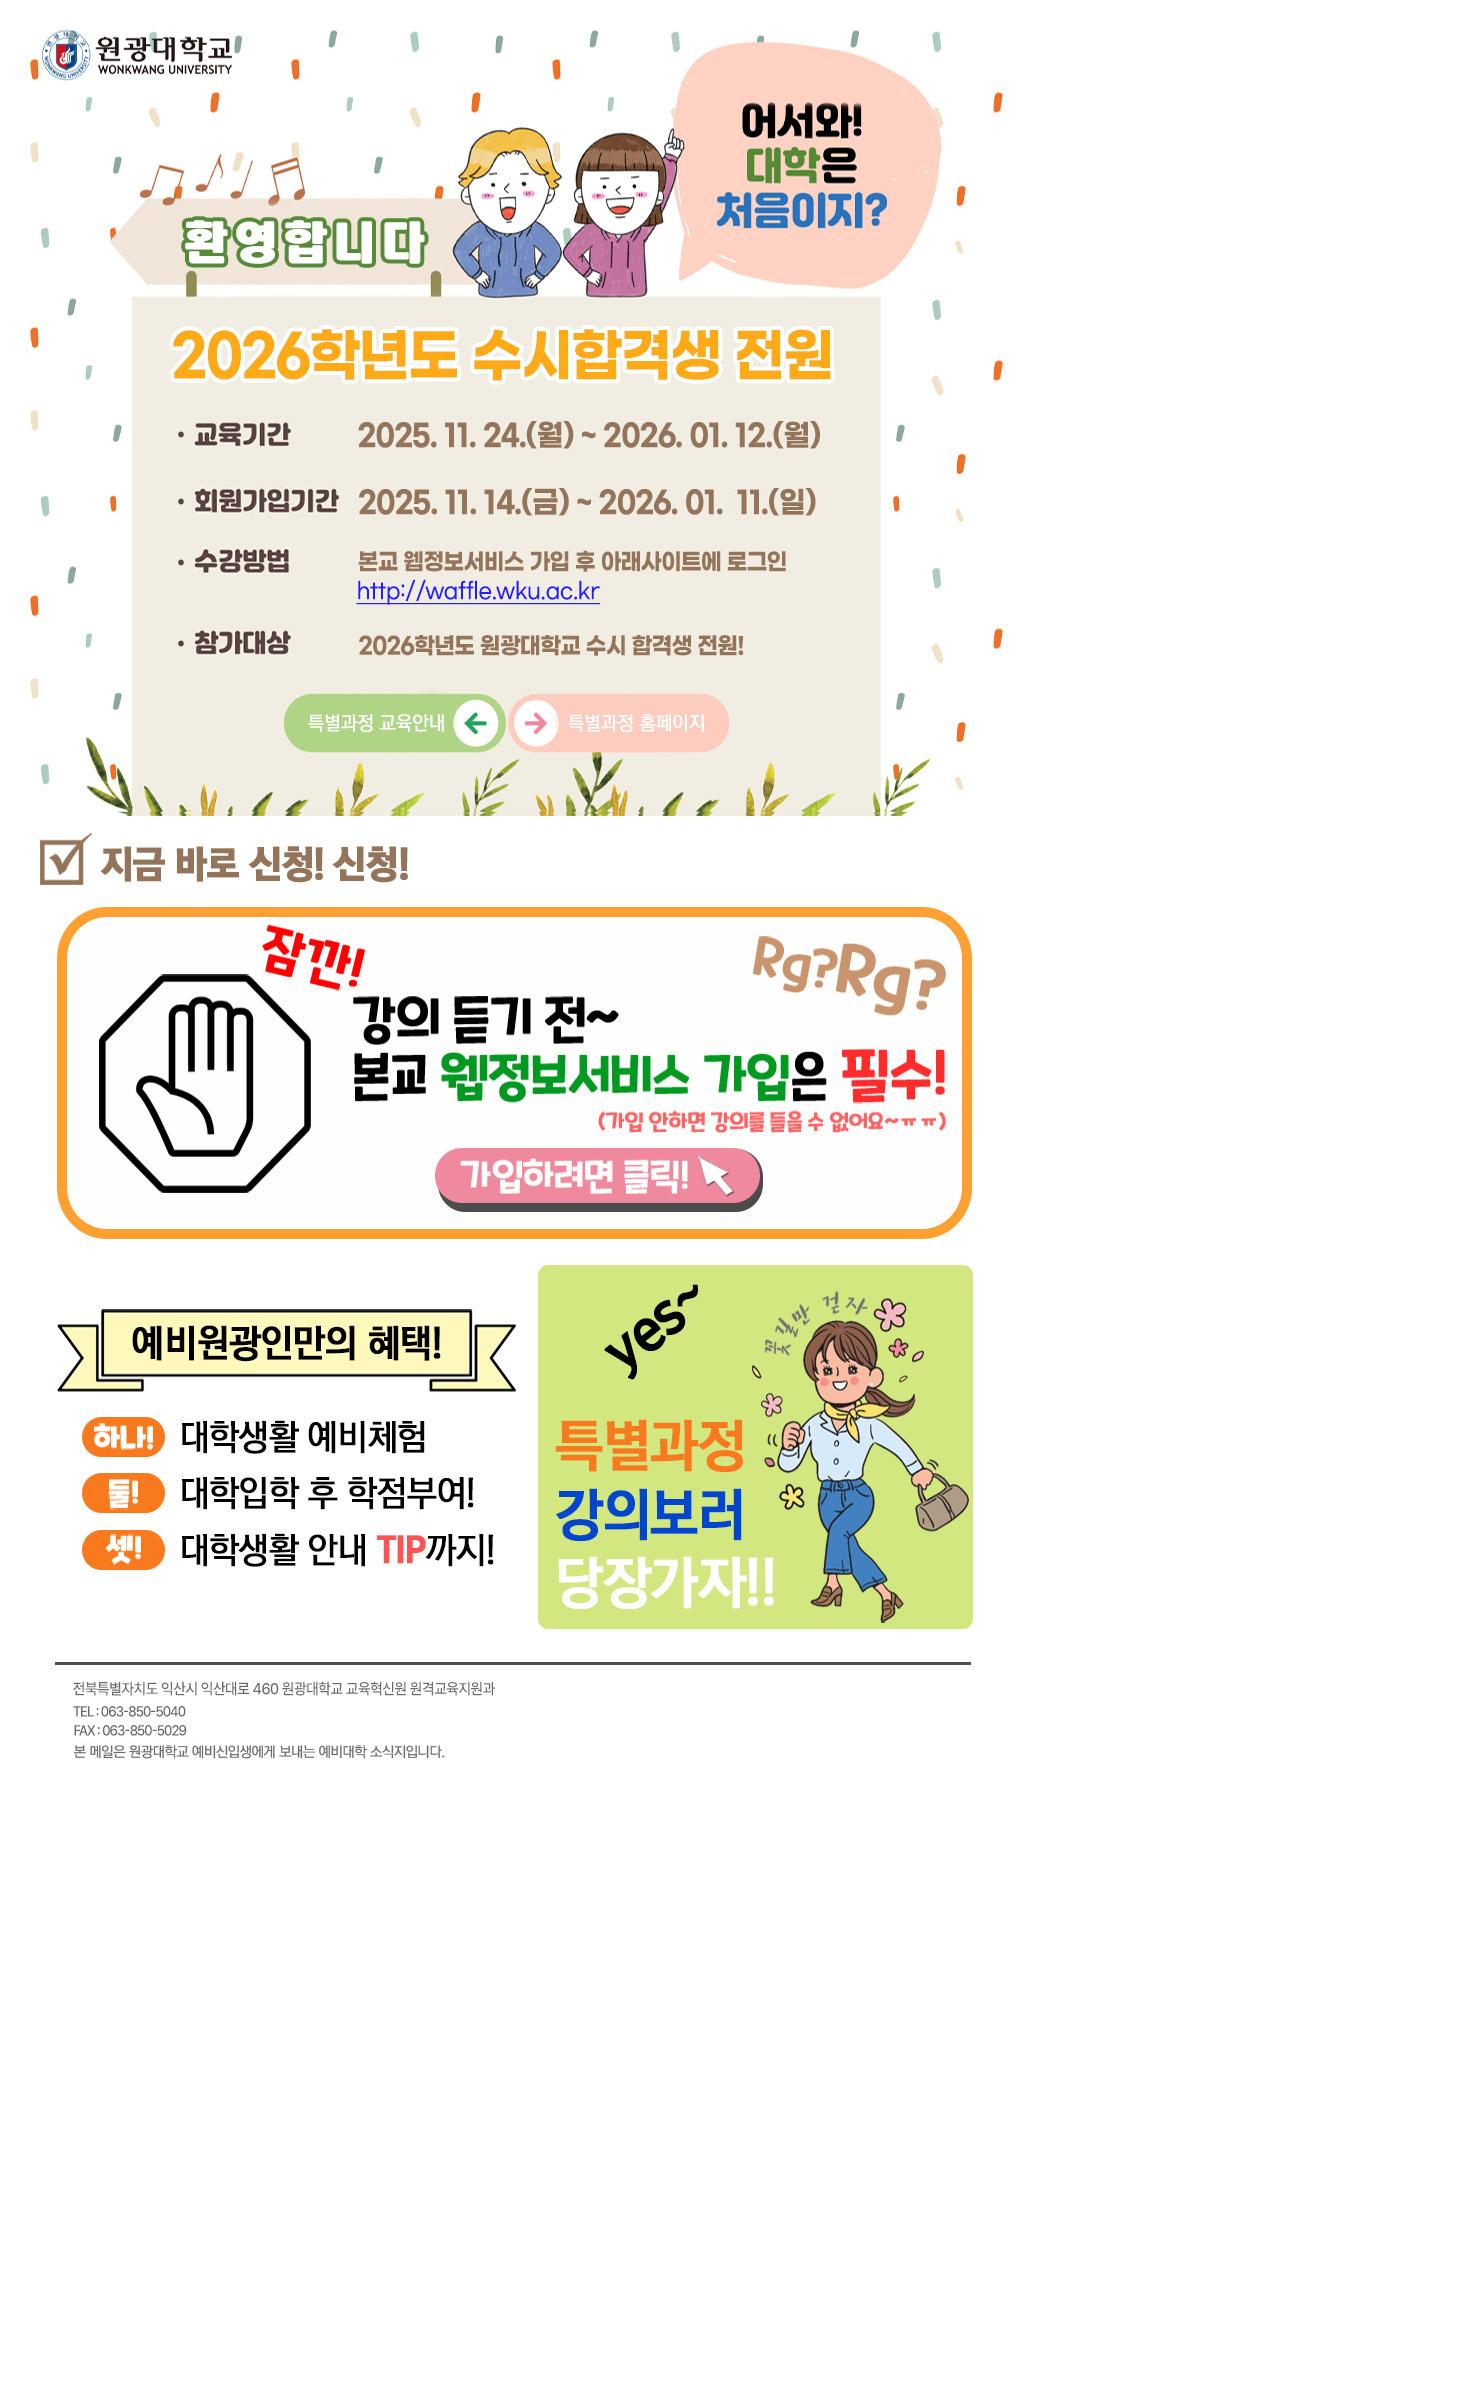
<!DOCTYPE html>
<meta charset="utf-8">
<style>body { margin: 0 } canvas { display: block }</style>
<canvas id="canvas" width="1483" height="2392"></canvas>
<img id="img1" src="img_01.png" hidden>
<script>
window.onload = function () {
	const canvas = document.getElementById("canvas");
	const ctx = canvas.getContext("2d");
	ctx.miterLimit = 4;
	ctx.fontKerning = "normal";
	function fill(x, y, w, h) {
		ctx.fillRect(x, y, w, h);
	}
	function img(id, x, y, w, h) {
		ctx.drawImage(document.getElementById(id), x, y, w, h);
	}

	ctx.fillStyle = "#FFFFFF";
	fill(0, 0, 1483, 2392);
	img("img1", 24, 24, 984, 1736);
};
</script>
